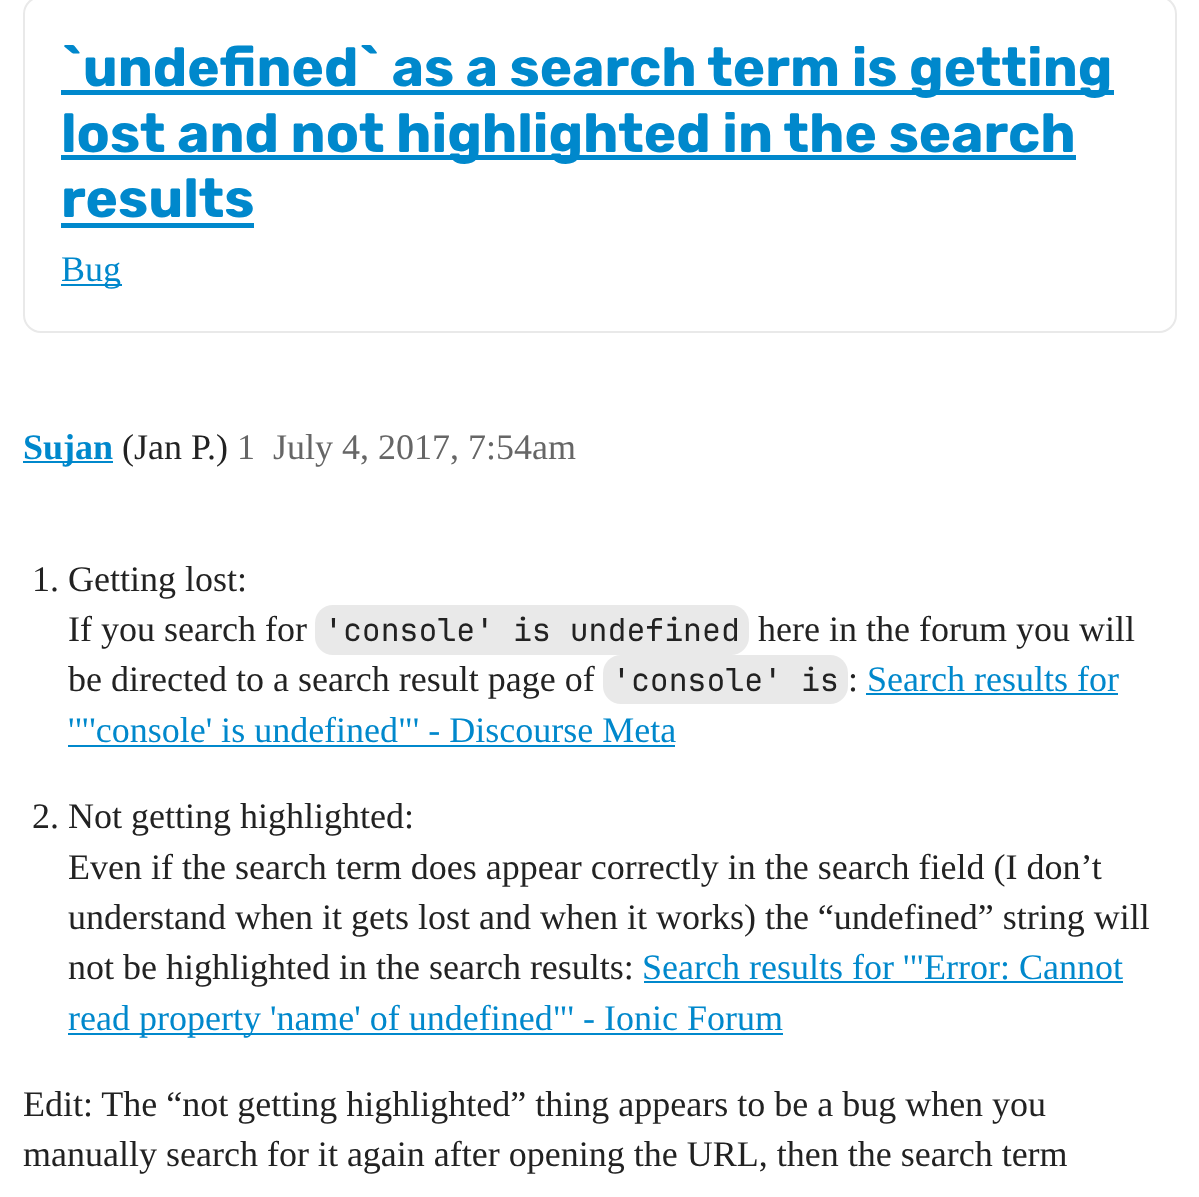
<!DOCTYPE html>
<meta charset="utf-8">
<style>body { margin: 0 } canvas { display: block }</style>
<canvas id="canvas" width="1199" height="1197"></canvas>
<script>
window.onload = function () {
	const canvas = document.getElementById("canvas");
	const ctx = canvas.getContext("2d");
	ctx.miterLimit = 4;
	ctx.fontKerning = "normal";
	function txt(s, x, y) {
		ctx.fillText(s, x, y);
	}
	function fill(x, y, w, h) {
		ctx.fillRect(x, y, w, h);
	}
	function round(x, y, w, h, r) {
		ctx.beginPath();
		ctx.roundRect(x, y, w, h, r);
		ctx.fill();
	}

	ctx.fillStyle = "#FFFFFF";
	fill(0, 0, 1199, 1197);
	ctx.beginPath();
	ctx.roundRect(24, -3, 1152, 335, 17);
	ctx.strokeStyle = "#E9E9E9";
	ctx.lineWidth = 2;
	ctx.stroke();
	ctx.fillStyle = "#0088CC";
	fill(61, 90, 1053, 5);
	fill(61, 155, 1015, 5);
	fill(61, 223, 193, 5);
	fill(61, 284, 61, 2);
	fill(23, 461, 90, 2);
	ctx.fillStyle = "#E9E9E9";
	round(315, 605, 434, 50, 18);
	round(603, 655, 245, 49, 18);
	ctx.fillStyle = "#0088CC";
	fill(866, 693, 252, 2);
	fill(68, 745, 607, 2);
	fill(644, 981, 479, 2);
	fill(68, 1033, 715, 2);
	ctx.font = "bold 54.6px Rubik";
	txt("`undefined` as a search term is getting", 61, 86);
	txt("lost and not highlighted in the search", 61, 152);
	txt("results", 61, 217);
	ctx.font = "36px Liberation Serif";
	txt("Bug", 61, 281);
	ctx.font = "bold 36px Liberation Serif";
	txt("Sujan", 23, 459);
	ctx.font = "36px Liberation Serif";
	ctx.fillStyle = "#222222";
	txt("(Jan P.)", 122, 459);
	ctx.fillStyle = "#666666";
	txt("1", 237, 459);
	txt("July 4, 2017, 7:54am", 273, 459);
	ctx.fillStyle = "#222222";
	txt("1. Getting lost:", 32, 591);
	txt("If you search for", 68, 641);
	ctx.font = "31.5px JetBrains Mono";
	txt("'console' is undefined", 324, 641);
	ctx.font = "36px Liberation Serif";
	txt("here in the forum you will", 758, 641);
	txt("be directed to a search result page of", 68, 691);
	ctx.font = "31.5px JetBrains Mono";
	txt("'console' is", 612, 691);
	ctx.font = "36px Liberation Serif";
	txt(":", 848, 691);
	ctx.fillStyle = "#0088CC";
	txt("Search results for", 867, 691);
	txt("'\"'console' is undefined\"' - Discourse Meta", 68, 742);
	ctx.fillStyle = "#222222";
	txt("2. Not getting highlighted:", 32, 828);
	txt("Even if the search term does appear correctly in the search field (I don’t", 68, 879);
	txt("understand when it gets lost and when it works) the “undefined” string will", 68, 929);
	txt("not be highlighted in the search results:", 68, 979);
	ctx.fillStyle = "#0088CC";
	txt("Search results for '\"Error: Cannot", 642, 979);
	txt("read property 'name' of undefined\"' - Ionic Forum", 68, 1030);
	ctx.fillStyle = "#222222";
	txt("Edit: The “not getting highlighted” thing appears to be a bug when you", 23, 1116);
	txt("manually search for it again after opening the URL, then the search term", 23, 1166);
};
</script>
